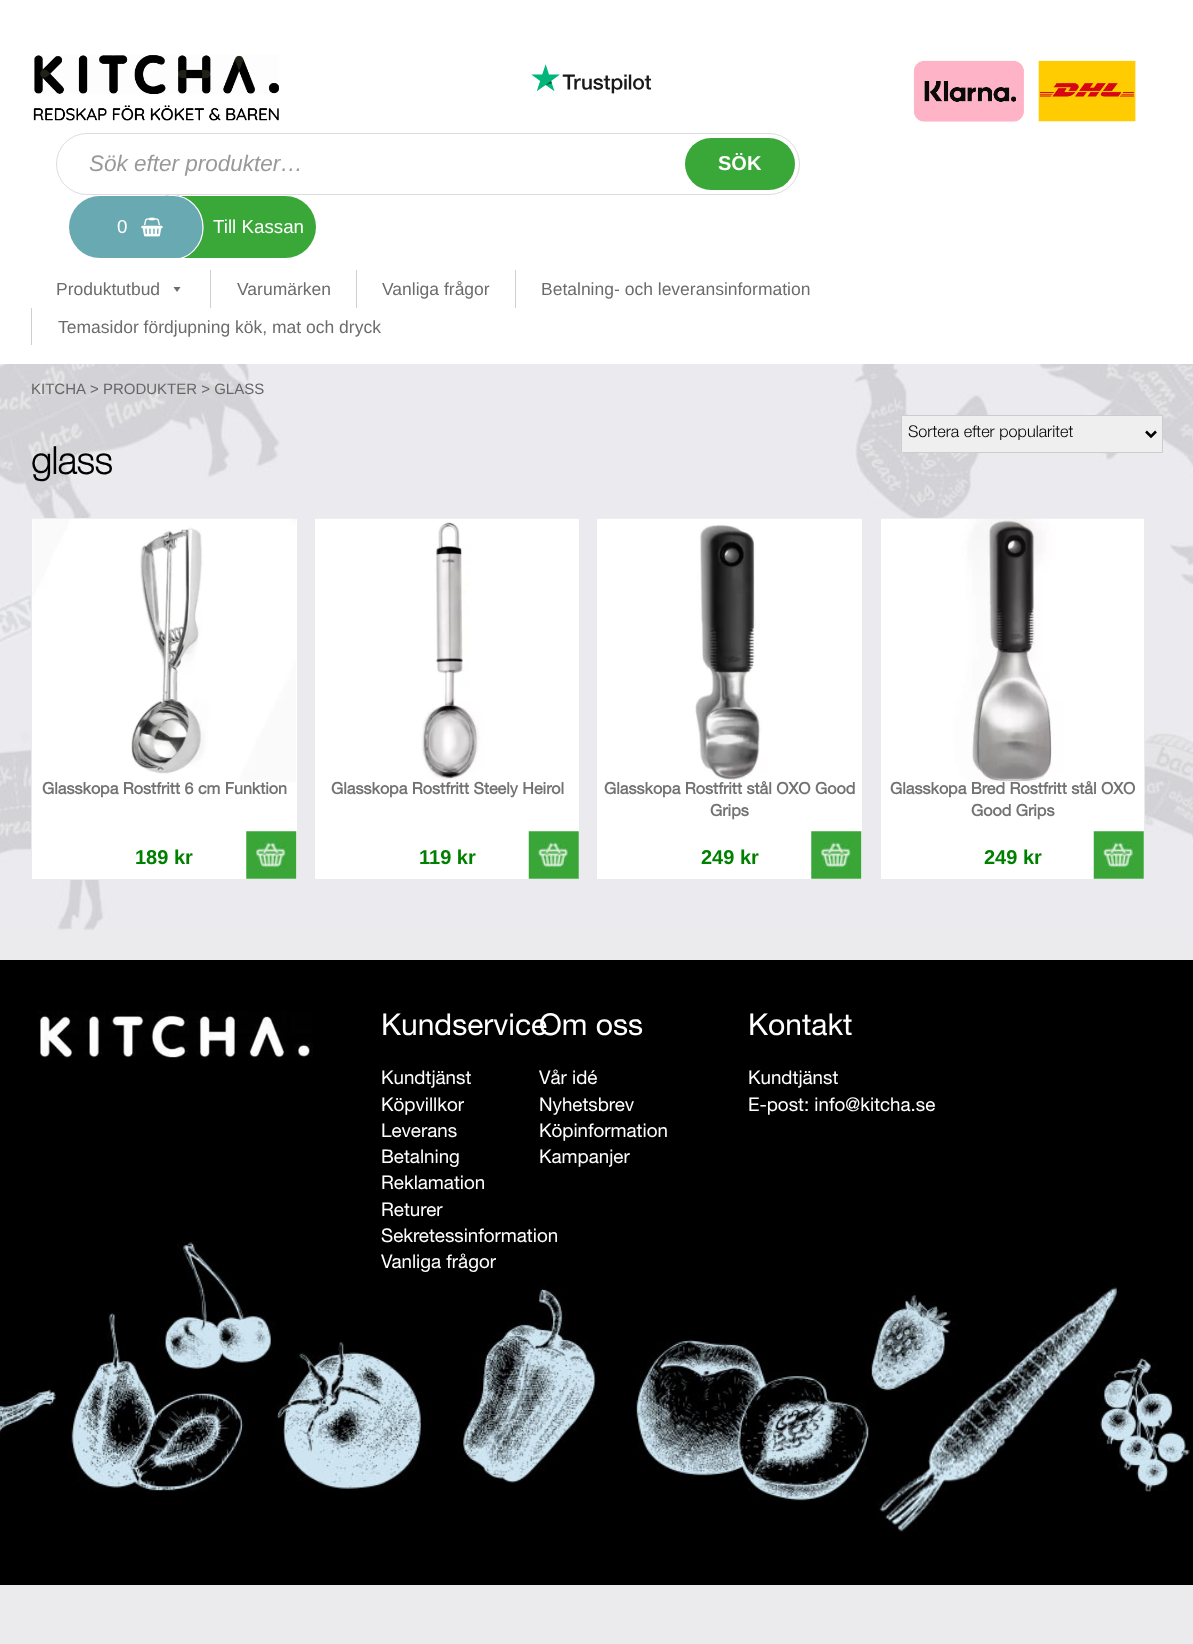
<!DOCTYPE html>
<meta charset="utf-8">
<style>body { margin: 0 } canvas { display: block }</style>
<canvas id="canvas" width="1193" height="1644"></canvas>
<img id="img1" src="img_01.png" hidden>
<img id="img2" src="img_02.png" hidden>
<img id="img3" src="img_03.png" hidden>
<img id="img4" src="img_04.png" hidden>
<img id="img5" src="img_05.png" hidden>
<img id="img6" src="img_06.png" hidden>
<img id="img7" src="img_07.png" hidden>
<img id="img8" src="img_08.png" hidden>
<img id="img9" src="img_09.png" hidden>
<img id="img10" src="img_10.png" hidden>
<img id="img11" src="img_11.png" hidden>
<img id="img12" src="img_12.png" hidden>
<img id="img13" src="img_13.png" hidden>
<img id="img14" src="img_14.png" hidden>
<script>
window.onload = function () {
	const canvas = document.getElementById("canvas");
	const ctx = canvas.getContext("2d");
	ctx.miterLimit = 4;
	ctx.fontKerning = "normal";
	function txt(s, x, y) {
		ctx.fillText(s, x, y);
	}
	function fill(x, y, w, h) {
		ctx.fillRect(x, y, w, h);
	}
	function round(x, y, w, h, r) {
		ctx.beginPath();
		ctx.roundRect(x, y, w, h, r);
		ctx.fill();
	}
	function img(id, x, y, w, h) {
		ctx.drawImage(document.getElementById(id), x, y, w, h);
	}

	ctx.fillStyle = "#EBEBEE";
	fill(0, 0, 1193, 1644);
	img("img1", 0, 364, 1193, 567);
	ctx.fillStyle = "#FFFFFF";
	fill(0, 0, 1193, 364);
	img("img2", 33, 55, 246, 66);
	img("img3", 531, 64, 121, 30);
	img("img4", 913, 60, 223, 62);
	ctx.beginPath();
	ctx.roundRect(56.5, 133.5, 743, 61, 30.5);
	ctx.strokeStyle = "#DDDDDD";
	ctx.stroke();
	ctx.fillStyle = "#3AA739";
	round(685, 138, 110, 52, 26);
	ctx.beginPath();
	ctx.roundRect(175, 196, 141, 62, [0, 31, 31, 0]);
	ctx.fill();
	ctx.save();
	ctx.beginPath();
	ctx.rect(69, 195, 252, 63);
	ctx.clip();
	ctx.fillStyle = "#69A9B1";
	ctx.beginPath();
	ctx.ellipse(172.5, 227.5, 31, 32.5, 0, 0, Math.PI * 2);
	ctx.fill();
	ctx.beginPath();
	ctx.moveTo(172.5, 195.5);
	ctx.bezierCurveTo(189.5, 195.5, 203, 210, 203, 227.5);
	ctx.bezierCurveTo(203, 245, 189.5, 259.5, 172.5, 259.5);
	ctx.bezierCurveTo(155.5, 259.5, 142, 245, 142, 227.5);
	ctx.bezierCurveTo(142, 210, 155.5, 195.5, 172.5, 195.5);
	ctx.closePath();
	ctx.strokeStyle = "#FFFFFF";
	ctx.lineWidth = 1.2;
	ctx.stroke();
	ctx.restore();
	ctx.fillStyle = "#69A9B1";
	ctx.beginPath();
	ctx.roundRect(69, 196, 106, 62, [31, 0, 0, 31]);
	ctx.fill();
	img("img5", 141, 217, 22, 20);
	ctx.fillStyle = "#6C6C6C";
	ctx.beginPath();
	ctx.moveTo(180.5, 287);
	ctx.lineTo(177, 292);
	ctx.lineTo(173.5, 287);
	ctx.closePath();
	ctx.fill();
	ctx.fillStyle = "#CFCFCF";
	fill(210, 270, 1, 38);
	fill(356, 270, 1, 38);
	fill(515, 270, 1, 38);
	fill(31, 308, 1, 37);
	ctx.fillStyle = "#EFEFEF";
	ctx.beginPath();
	ctx.rect(901.5, 415.5, 261, 37);
	ctx.fill();
	ctx.strokeStyle = "#CCCCCC";
	ctx.stroke();
	ctx.beginPath();
	ctx.moveTo(1146, 431.5);
	ctx.lineTo(1151, 436.5);
	ctx.lineTo(1156, 431.5);
	ctx.strokeStyle = "#000000";
	ctx.lineWidth = 2.5;
	ctx.stroke();
	ctx.fillStyle = "#FFFFFF";
	ctx.beginPath();
	ctx.rect(31.5, 518.5, 266, 361);
	ctx.fill();
	ctx.strokeStyle = "#EAEAEC";
	ctx.lineWidth = 1;
	ctx.stroke();
	img("img6", 32, 518, 264, 264);
	img("img7", 246, 831, 51, 48);
	ctx.beginPath();
	ctx.rect(314.5, 518.5, 265, 361);
	ctx.fill();
	ctx.stroke();
	img("img8", 315, 518, 263, 263);
	img("img9", 528, 831, 51, 48);
	ctx.beginPath();
	ctx.rect(596.5, 518.5, 266, 361);
	ctx.fill();
	ctx.stroke();
	img("img10", 598, 518, 263, 262);
	img("img7", 811, 831, 51, 48);
	ctx.beginPath();
	ctx.rect(880.5, 518.5, 264, 361);
	ctx.fill();
	ctx.stroke();
	img("img11", 882, 518, 261, 265);
	img("img12", 1093, 831, 51, 48);
	ctx.fillStyle = "#000000";
	fill(0, 960, 1193, 625);
	img("img13", 0, 1241, 1193, 291);
	img("img14", 38, 1011, 275, 49);
	ctx.font = "italic 22.5px Liberation Sans";
	ctx.fillStyle = "#999999";
	txt("Sök efter produkter…", 89, 171);
	ctx.font = "bold 20px Liberation Sans";
	ctx.fillStyle = "#FFFFFF";
	txt("SÖK", 718, 170);
	ctx.font = "18.75px Liberation Sans";
	txt("0", 117, 233);
	txt("Till Kassan", 213, 233);
	ctx.font = "17.5px Liberation Sans";
	ctx.fillStyle = "#6C6C6C";
	txt("Produktutbud", 56, 295);
	txt("Varumärken", 237, 295);
	txt("Vanliga frågor", 382, 295);
	txt("Betalning- och leveransinformation", 541, 295);
	txt("Temasidor fördjupning kök, mat och dryck", 58, 333);
	ctx.font = "15px Liberation Sans";
	ctx.fillStyle = "#666666";
	txt("KITCHA", 31, 394);
	txt("> PRODUKTER > GLASS", 90, 394);
	ctx.font = "300 16.25px Helvetica Neue";
	ctx.fillStyle = "#000000";
	txt("Sortera efter popularitet", 908, 437);
	ctx.font = "bold 37.5px Helvetica Neue";
	txt("glass", 31, 474);
	ctx.font = "bold 16.1px 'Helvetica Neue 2'";
	ctx.fillStyle = "#727272";
	txt("Glasskopa Rostfritt 6 cm Funktion", 42, 794);
	ctx.font = "bold 20px Liberation Sans";
	ctx.fillStyle = "#008000";
	txt("189 kr", 135, 864);
	ctx.font = "bold 16.1px 'Helvetica Neue 2'";
	ctx.fillStyle = "#727272";
	txt("Glasskopa Rostfritt Steely Heirol", 331, 794);
	ctx.font = "bold 20px Liberation Sans";
	ctx.fillStyle = "#008000";
	txt("119 kr", 419, 864);
	ctx.font = "bold 16.1px 'Helvetica Neue 2'";
	ctx.fillStyle = "#727272";
	txt("Glasskopa Rostfritt stål OXO Good", 604, 794);
	txt("Grips", 710, 816);
	ctx.font = "bold 20px Liberation Sans";
	ctx.fillStyle = "#008000";
	txt("249 kr", 701, 864);
	ctx.font = "bold 16.1px 'Helvetica Neue 2'";
	ctx.fillStyle = "#727272";
	txt("Glasskopa Bred Rostfritt stål OXO", 890, 794);
	txt("Good Grips", 971, 816);
	ctx.font = "bold 20px Liberation Sans";
	ctx.fillStyle = "#008000";
	txt("249 kr", 984, 864);
	ctx.font = "30px Helvetica Neue";
	ctx.fillStyle = "#FFFFFF";
	txt("Kundservice", 381, 1035);
	ctx.font = "18.75px Helvetica Neue";
	txt("Kundtjänst", 381, 1084);
	txt("Köpvillkor", 381, 1111);
	txt("Leverans", 381, 1137);
	txt("Betalning", 381, 1163);
	txt("Reklamation", 381, 1189);
	txt("Returer", 381, 1216);
	txt("Sekretessinformation", 381, 1242);
	txt("Vanliga frågor", 381, 1268);
	ctx.font = "30px Helvetica Neue";
	txt("Om oss", 539, 1035);
	ctx.font = "18.75px Helvetica Neue";
	txt("Vår idé", 539, 1084);
	txt("Nyhetsbrev", 539, 1111);
	txt("Köpinformation", 539, 1137);
	txt("Kampanjer", 539, 1163);
	ctx.font = "30px Helvetica Neue";
	txt("Kontakt", 748, 1035);
	ctx.font = "18.75px Helvetica Neue";
	txt("Kundtjänst", 748, 1084);
	txt("E-post: info@kitcha.se", 748, 1111);
};
</script>
